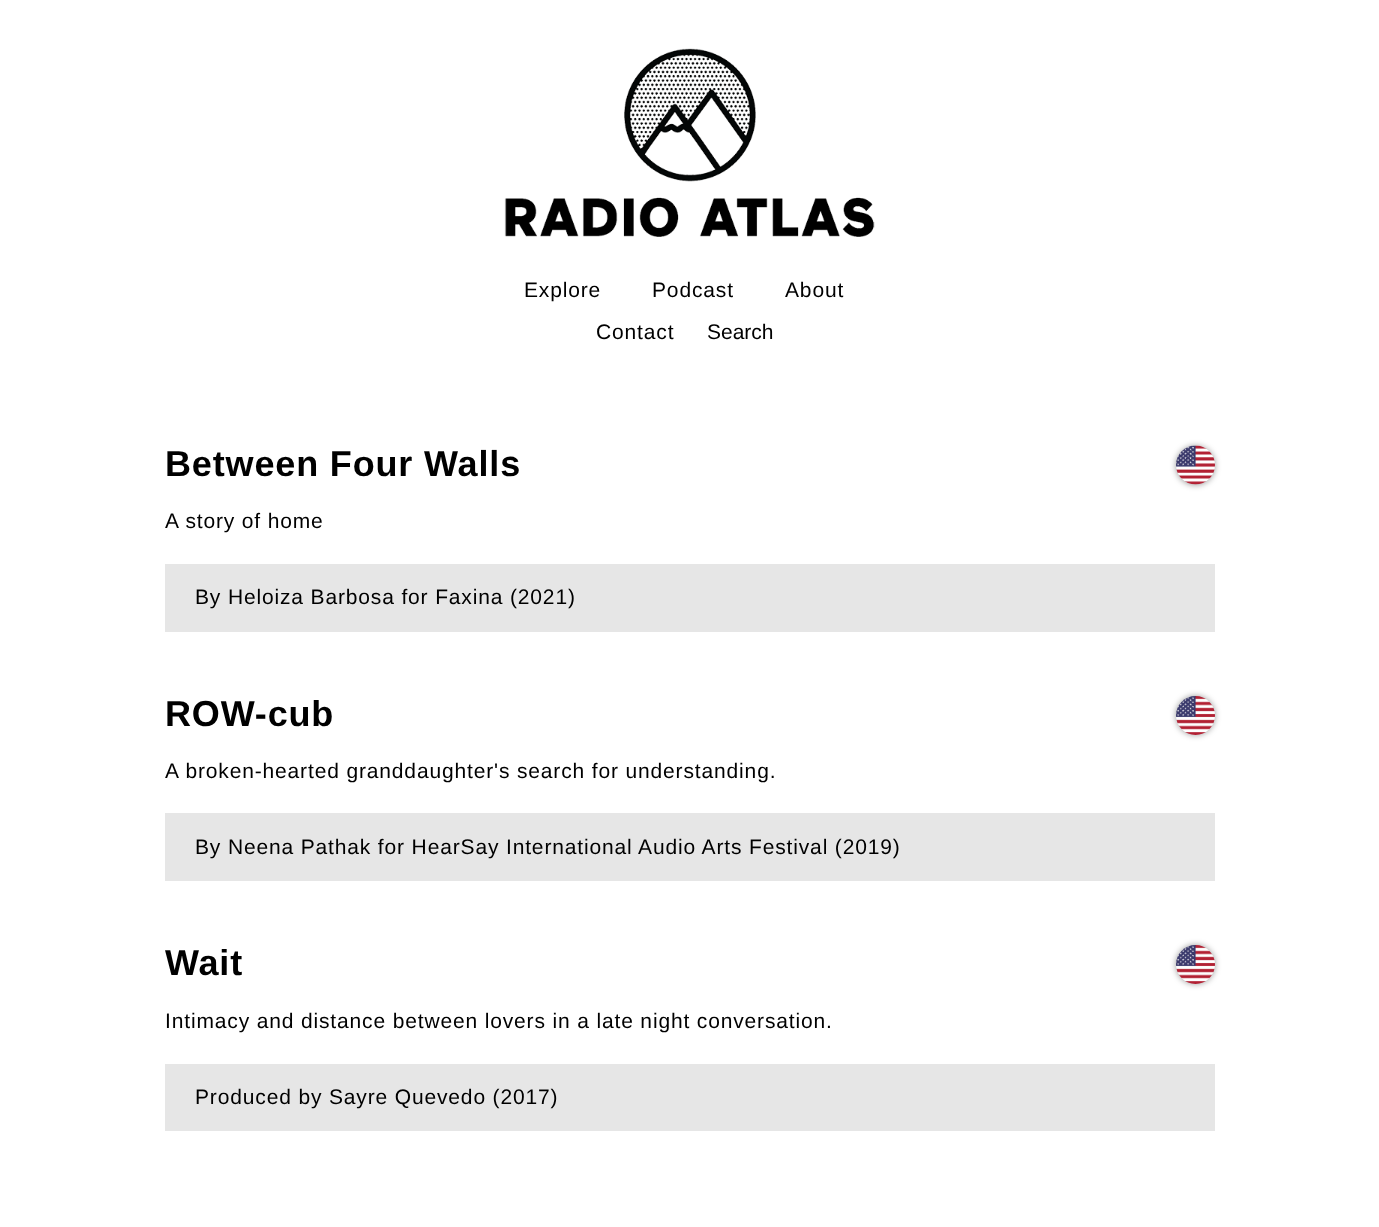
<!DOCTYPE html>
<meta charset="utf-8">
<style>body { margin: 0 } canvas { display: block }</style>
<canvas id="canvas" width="1379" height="1227"></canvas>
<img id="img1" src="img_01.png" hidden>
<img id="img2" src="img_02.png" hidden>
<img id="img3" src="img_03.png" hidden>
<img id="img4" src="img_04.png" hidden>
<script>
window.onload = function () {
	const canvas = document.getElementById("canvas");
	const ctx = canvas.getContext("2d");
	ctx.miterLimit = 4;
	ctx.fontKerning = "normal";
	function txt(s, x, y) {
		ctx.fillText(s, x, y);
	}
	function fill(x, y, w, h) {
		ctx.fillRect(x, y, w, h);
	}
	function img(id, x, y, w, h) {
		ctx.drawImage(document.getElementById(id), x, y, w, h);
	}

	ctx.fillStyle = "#FFFFFF";
	fill(0, 0, 1379, 1227);
	img("img1", 504, 48, 371, 189);
	ctx.fillStyle = "rgba(0, 0, 0, 0.4)";
	ctx.filter = "blur(3px)";
	ctx.beginPath();
	ctx.roundRect(1176, 446, 39, 39, 19.5);
	ctx.fill();
	ctx.filter = "none";
	img("img2", 1176, 445, 39, 40);
	ctx.fillStyle = "#E6E6E6";
	fill(165, 564, 1050, 68);
	ctx.fillStyle = "rgba(0, 0, 0, 0.4)";
	ctx.filter = "blur(3px)";
	ctx.beginPath();
	ctx.roundRect(1176, 696, 39, 39, 19.5);
	ctx.fill();
	ctx.filter = "none";
	img("img3", 1176, 696, 39, 39);
	ctx.fillStyle = "#E6E6E6";
	fill(165, 813, 1050, 68);
	ctx.fillStyle = "rgba(0, 0, 0, 0.4)";
	ctx.filter = "blur(3px)";
	ctx.beginPath();
	ctx.roundRect(1176, 945, 39, 39, 19.5);
	ctx.fill();
	ctx.filter = "none";
	img("img4", 1176, 945, 39, 39);
	ctx.fillStyle = "#E6E6E6";
	fill(165, 1064, 1050, 67);
	ctx.letterSpacing = "0.85px";
	ctx.font = "21px Liberation Sans";
	ctx.fillStyle = "#000000";
	txt("Explore", 524, 297);
	txt("Podcast", 652, 297);
	txt("About", 785, 297);
	txt("Contact", 596, 339);
	ctx.letterSpacing = "0px";
	txt("Search", 707, 339);
	ctx.letterSpacing = "0.85px";
	ctx.font = "bold 36px Liberation Sans";
	txt("Between Four Walls", 165, 476);
	ctx.font = "21px Liberation Sans";
	txt("A story of home", 165, 528);
	txt("By Heloiza Barbosa for Faxina (2021)", 195, 604);
	ctx.font = "bold 36px Liberation Sans";
	txt("ROW-cub", 165, 726);
	ctx.font = "21px Liberation Sans";
	txt("A broken-hearted granddaughter's search for understanding.", 165, 778);
	txt("By Neena Pathak for HearSay International Audio Arts Festival (2019)", 195, 854);
	ctx.font = "bold 36px Liberation Sans";
	txt("Wait", 165, 975);
	ctx.font = "21px Liberation Sans";
	txt("Intimacy and distance between lovers in a late night conversation.", 165, 1028);
	txt("Produced by Sayre Quevedo (2017)", 195, 1104);
};
</script>
